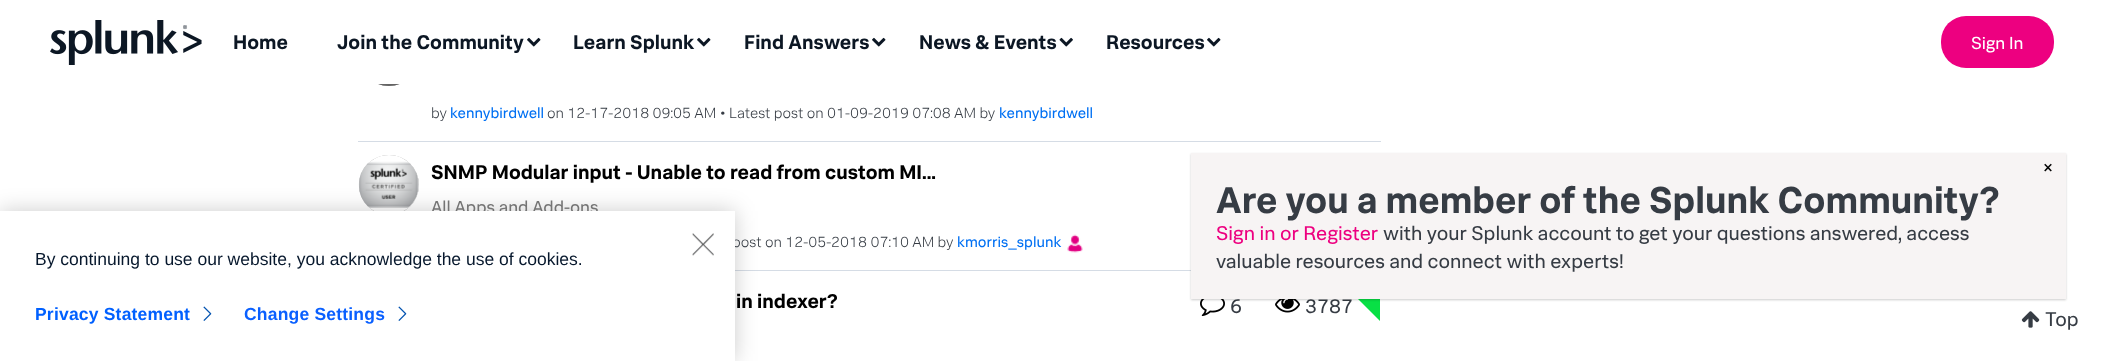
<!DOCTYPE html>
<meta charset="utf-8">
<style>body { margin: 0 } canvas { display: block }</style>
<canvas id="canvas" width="2103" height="361"></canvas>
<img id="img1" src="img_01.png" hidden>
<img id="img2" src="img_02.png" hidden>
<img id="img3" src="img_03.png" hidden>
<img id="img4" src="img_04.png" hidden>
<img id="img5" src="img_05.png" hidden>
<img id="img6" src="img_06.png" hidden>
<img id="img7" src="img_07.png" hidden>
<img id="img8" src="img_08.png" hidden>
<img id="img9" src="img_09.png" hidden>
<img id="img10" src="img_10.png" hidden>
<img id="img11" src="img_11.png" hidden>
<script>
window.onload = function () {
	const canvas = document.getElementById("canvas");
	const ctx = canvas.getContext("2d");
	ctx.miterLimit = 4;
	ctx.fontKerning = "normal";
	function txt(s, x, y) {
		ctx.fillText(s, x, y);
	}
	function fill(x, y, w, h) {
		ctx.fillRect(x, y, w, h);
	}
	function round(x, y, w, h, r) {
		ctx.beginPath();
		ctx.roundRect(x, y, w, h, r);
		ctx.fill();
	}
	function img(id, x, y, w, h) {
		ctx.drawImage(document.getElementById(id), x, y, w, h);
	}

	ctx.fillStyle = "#FFFFFF";
	fill(0, 0, 2103, 361);
	ctx.fillStyle = "#999999";
	ctx.filter = "blur(0.5px)";
	ctx.beginPath();
	ctx.roundRect(359, 26, 60, 60, 30);
	ctx.fill();
	ctx.filter = "none";
	ctx.fillStyle = "#FFFFFF";
	fill(358, 25, 62, 59);
	img("img1", 50, 20, 152, 45);
	img("img2", 527, 37, 14, 10);
	img("img2", 697, 37, 14, 10);
	img("img2", 872, 37, 14, 10);
	img("img3", 1059, 37, 14, 10);
	img("img2", 1207, 37, 14, 10);
	ctx.fillStyle = "#ED0080";
	round(1941, 16, 113, 52, 25);
	img("img4", 378, 84, 22, 2);
	ctx.fillStyle = "#D5DCE5";
	fill(358, 141, 1023, 1);
	ctx.save();
	ctx.beginPath();
	ctx.moveTo(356, 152);
	ctx.lineTo(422, 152);
	ctx.lineTo(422, 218);
	ctx.lineTo(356, 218);
	ctx.closePath();
	ctx.moveTo(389, 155);
	ctx.bezierCurveTo(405.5, 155, 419, 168.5, 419, 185);
	ctx.bezierCurveTo(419, 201.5, 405.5, 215, 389, 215);
	ctx.bezierCurveTo(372.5, 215, 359, 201.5, 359, 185);
	ctx.bezierCurveTo(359, 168.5, 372.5, 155, 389, 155);
	ctx.closePath();
	ctx.clip("evenodd");
	ctx.fillStyle = "#999999";
	ctx.filter = "blur(0.5px)";
	ctx.beginPath();
	ctx.roundRect(359, 155, 60, 60, 30);
	ctx.fill();
	ctx.filter = "none";
	ctx.restore();
	img("img5", 358, 161, 61, 47);
	img("img6", 1067, 234, 16, 19);
	fill(735, 270, 456, 1);
	img("img7", 1200, 299, 25, 18);
	img("img8", 1275, 299, 25, 14);
	img("img9", 2021, 311, 19, 17);
	ctx.fillStyle = "rgba(0, 0, 0, 0.2)";
	ctx.filter = "blur(11px)";
	ctx.beginPath();
	ctx.rect(0, 211, 735, 150);
	ctx.fill();
	ctx.filter = "none";
	ctx.font = "bold 20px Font";
	ctx.fillStyle = "#0C1724";
	txt("Home", 233, 49);
	txt("Join the Community", 337, 49);
	txt("Learn Splunk", 573, 49);
	txt("Find Answers", 744, 49);
	txt("News & Events", 919, 49);
	txt("Resources", 1106, 49);
	ctx.font = "17.5px Font";
	ctx.fillStyle = "#FFFFFF";
	txt("Sign In", 1971, 49);
	ctx.font = "300 15px Font";
	ctx.fillStyle = "#363C44";
	txt("by", 431, 118);
	ctx.font = "15px Font";
	ctx.fillStyle = "#0070F3";
	txt("kennybirdwell", 450, 118);
	ctx.font = "300 15px Font";
	ctx.fillStyle = "#363C44";
	txt("on 12-17-2018 09:05 AM", 547, 118);
	ctx.font = "300 17.5px Font";
	txt("•", 720, 118);
	ctx.font = "300 15px Font";
	txt("Latest post on 01-09-2019 07:08 AM by", 729, 118);
	ctx.font = "15px Font";
	ctx.fillStyle = "#0070F3";
	txt("kennybirdwell", 999, 118);
	ctx.font = "bold 20px Font";
	ctx.fillStyle = "#000000";
	txt("SNMP Modular input - Unable to read from custom MI...", 431, 179);
	ctx.font = "17.5px Font";
	ctx.fillStyle = "#747474";
	txt("All Apps and Add-ons", 431, 213);
	ctx.font = "300 15px Font";
	ctx.fillStyle = "#363C44";
	txt("post on 12-05-2018 07:10 AM by", 732, 247);
	ctx.font = "15px Font";
	ctx.fillStyle = "#0070F3";
	txt("kmorris_splunk", 957, 247);
	ctx.font = "bold 20px Font";
	ctx.fillStyle = "#000000";
	txt("in indexer?", 736, 308);
	ctx.font = "20px Font";
	ctx.fillStyle = "#363C44";
	txt("6", 1230, 313);
	txt("3787", 1305, 313);
	ctx.fillStyle = "#08E045";
	ctx.beginPath();
	ctx.moveTo(1330, 271);
	ctx.lineTo(1380, 271);
	ctx.lineTo(1380, 321);
	ctx.closePath();
	ctx.fill();
	ctx.fillStyle = "rgba(0, 0, 0, 0.2)";
	ctx.filter = "blur(1px)";
	ctx.beginPath();
	ctx.rect(1191, 154, 875, 146);
	ctx.fill();
	ctx.filter = "none";
	ctx.fillStyle = "#F7F4F4";
	fill(1191, 153, 875, 146);
	ctx.fillStyle = "#000000";
	txt("×", 2042, 174);
	ctx.fillStyle = "#363C44";
	txt("valuable resources and connect with experts!", 1216, 268);
	txt("with your Splunk account to get your questions answered, access", 1383, 240);
	ctx.fillStyle = "#ED0080";
	txt("Sign in or Register", 1216, 240);
	ctx.font = "bold 37.5px Font";
	ctx.fillStyle = "#363C44";
	txt("Are you a member of the Splunk Community?", 1216, 213);
	ctx.font = "20px Font";
	txt("Top", 2045, 326);
	ctx.fillStyle = "#FFFFFF";
	fill(0, 211, 735, 150);
	img("img10", 692, 233, 22, 23);
	ctx.font = "17.5px Liberation Sans";
	ctx.fillStyle = "#07182D";
	txt("By continuing to use our website, you acknowledge the use of cookies.", 35, 265);
	ctx.letterSpacing = "0.2px";
	ctx.font = "bold 17.5px Liberation Sans";
	ctx.fillStyle = "#0060FF";
	txt("Privacy Statement", 35, 320);
	img("img11", 203, 306, 9, 15);
	ctx.fillStyle = "#0A60FF";
	txt("Change Settings", 244, 320);
	img("img11", 398, 306, 9, 15);
};
</script>
